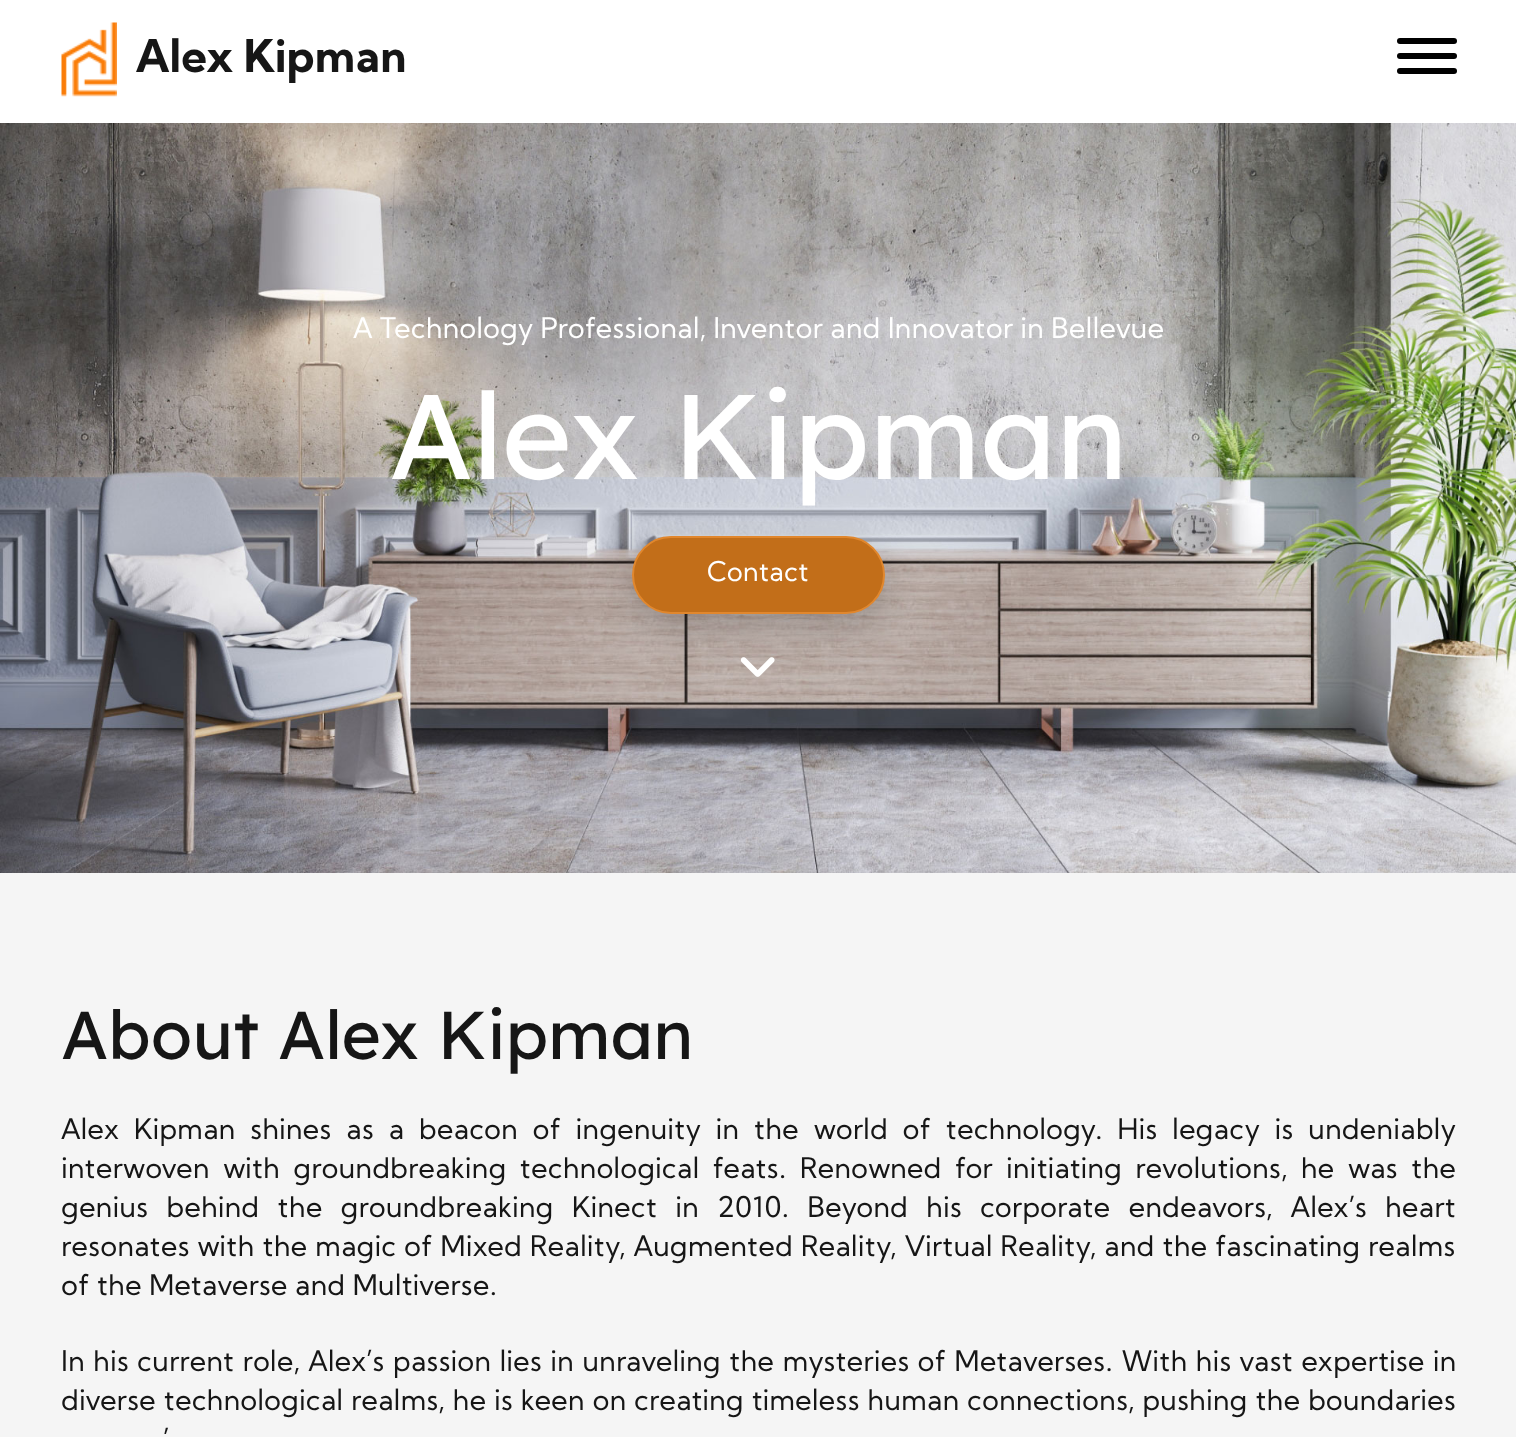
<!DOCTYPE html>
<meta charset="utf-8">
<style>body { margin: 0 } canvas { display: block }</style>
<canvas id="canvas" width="1516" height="1437"></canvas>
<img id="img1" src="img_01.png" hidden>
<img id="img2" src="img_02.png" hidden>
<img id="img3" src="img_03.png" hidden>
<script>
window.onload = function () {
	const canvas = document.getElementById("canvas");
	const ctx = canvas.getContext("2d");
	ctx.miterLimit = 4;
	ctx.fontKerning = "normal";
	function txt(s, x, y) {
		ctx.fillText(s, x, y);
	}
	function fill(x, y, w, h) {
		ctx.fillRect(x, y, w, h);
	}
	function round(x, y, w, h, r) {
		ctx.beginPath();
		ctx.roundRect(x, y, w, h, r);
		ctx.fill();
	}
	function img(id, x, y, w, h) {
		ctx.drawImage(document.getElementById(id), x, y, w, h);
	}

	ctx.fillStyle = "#FFFFFF";
	fill(0, 0, 1516, 1437);
	img("img1", 61, 22, 56, 75);
	ctx.fillStyle = "#000000";
	round(1397, 38, 60, 6, 3);
	round(1397, 53, 60, 6, 3);
	round(1397, 68, 60, 6, 3);
	img("img2", 0, 123, 1516, 750);
	ctx.fillStyle = "rgba(0, 0, 0, 0.2)";
	ctx.filter = "blur(19.5px)";
	ctx.beginPath();
	ctx.roundRect(632, 548, 253, 78, 39);
	ctx.fill();
	ctx.filter = "none";
	ctx.fillStyle = "#C26E19";
	ctx.beginPath();
	ctx.roundRect(633, 537, 251, 76, 38);
	ctx.fill();
	ctx.strokeStyle = "#E1872D";
	ctx.lineWidth = 2;
	ctx.stroke();
	img("img3", 740, 657, 35, 20);
	ctx.fillStyle = "#F5F5F5";
	fill(0, 873, 1516, 564);
	ctx.font = "bold 45px Kumbh Sans";
	ctx.fillStyle = "#161616";
	txt("Alex Kipman", 136, 72);
	ctx.font = "28.5px Kumbh Sans";
	ctx.fillStyle = "#FFFFFF";
	txt("A Technology Professional, Inventor and Innovator in Bellevue", 353, 338);
	ctx.font = "120px Lexend Deca";
	txt("Alex Kipman", 389, 479);
	ctx.font = "27px Kumbh Sans";
	txt("Contact", 707, 581);
	ctx.font = "67.5px Lexend Deca";
	ctx.fillStyle = "#161616";
	txt("About Alex Kipman", 61, 1059);
	ctx.wordSpacing = "7.4px";
	ctx.font = "28.5px Kumbh Sans";
	txt("Alex Kipman shines as a beacon of ingenuity in the world of technology. His legacy is undeniably", 61, 1139);
	ctx.wordSpacing = "6.1px";
	txt("interwoven with groundbreaking technological feats. Renowned for initiating revolutions, he was the", 61, 1178);
	ctx.wordSpacing = "10.9px";
	txt("genius behind the groundbreaking Kinect in 2010. Beyond his corporate endeavors, Alex’s heart", 61, 1217);
	ctx.wordSpacing = "0.6px";
	txt("resonates with the magic of Mixed Reality, Augmented Reality, Virtual Reality, and the fascinating realms", 61, 1256);
	ctx.wordSpacing = "0px";
	txt("of the Metaverse and Multiverse.", 61, 1295);
	ctx.wordSpacing = "1.1px";
	txt("In his current role, Alex’s passion lies in unraveling the mysteries of Metaverses. With his vast expertise in", 61, 1371);
	ctx.wordSpacing = "0.5px";
	txt("diverse technological realms, he is keen on creating timeless human connections, pushing the boundaries", 61, 1410);
	ctx.wordSpacing = "0px";
	txt("’", 163, 1449);
};
</script>
